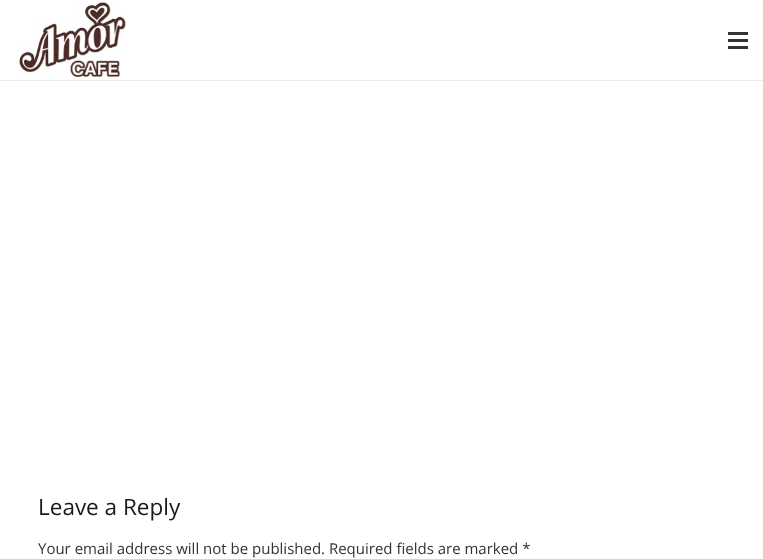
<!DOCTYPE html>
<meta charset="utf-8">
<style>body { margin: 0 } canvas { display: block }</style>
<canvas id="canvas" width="763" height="559"></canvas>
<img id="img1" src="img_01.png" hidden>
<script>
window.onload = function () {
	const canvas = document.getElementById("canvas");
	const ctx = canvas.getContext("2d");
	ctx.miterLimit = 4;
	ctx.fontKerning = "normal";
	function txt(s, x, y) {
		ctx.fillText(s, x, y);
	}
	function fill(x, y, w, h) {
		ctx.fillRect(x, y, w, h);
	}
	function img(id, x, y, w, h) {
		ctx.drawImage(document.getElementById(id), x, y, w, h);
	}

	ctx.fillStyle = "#FFFFFF";
	fill(0, 0, 763, 559);
	ctx.fillStyle = "#EBEBEB";
	fill(0, 80, 763, 1);
	img("img1", 19, 2, 107, 76);
	ctx.fillStyle = "#333333";
	fill(728, 39, 20, 3);
	fill(728, 32, 20, 3);
	fill(728, 46, 20, 3);
	ctx.font = "22.5px Open Sans";
	ctx.fillStyle = "#1A1A1A";
	txt("Leave a Reply", 38, 515);
	ctx.font = "15px Open Sans";
	ctx.fillStyle = "#333333";
	txt("Your email address will not be published. Required fields are marked *", 38, 554);
};
</script>
